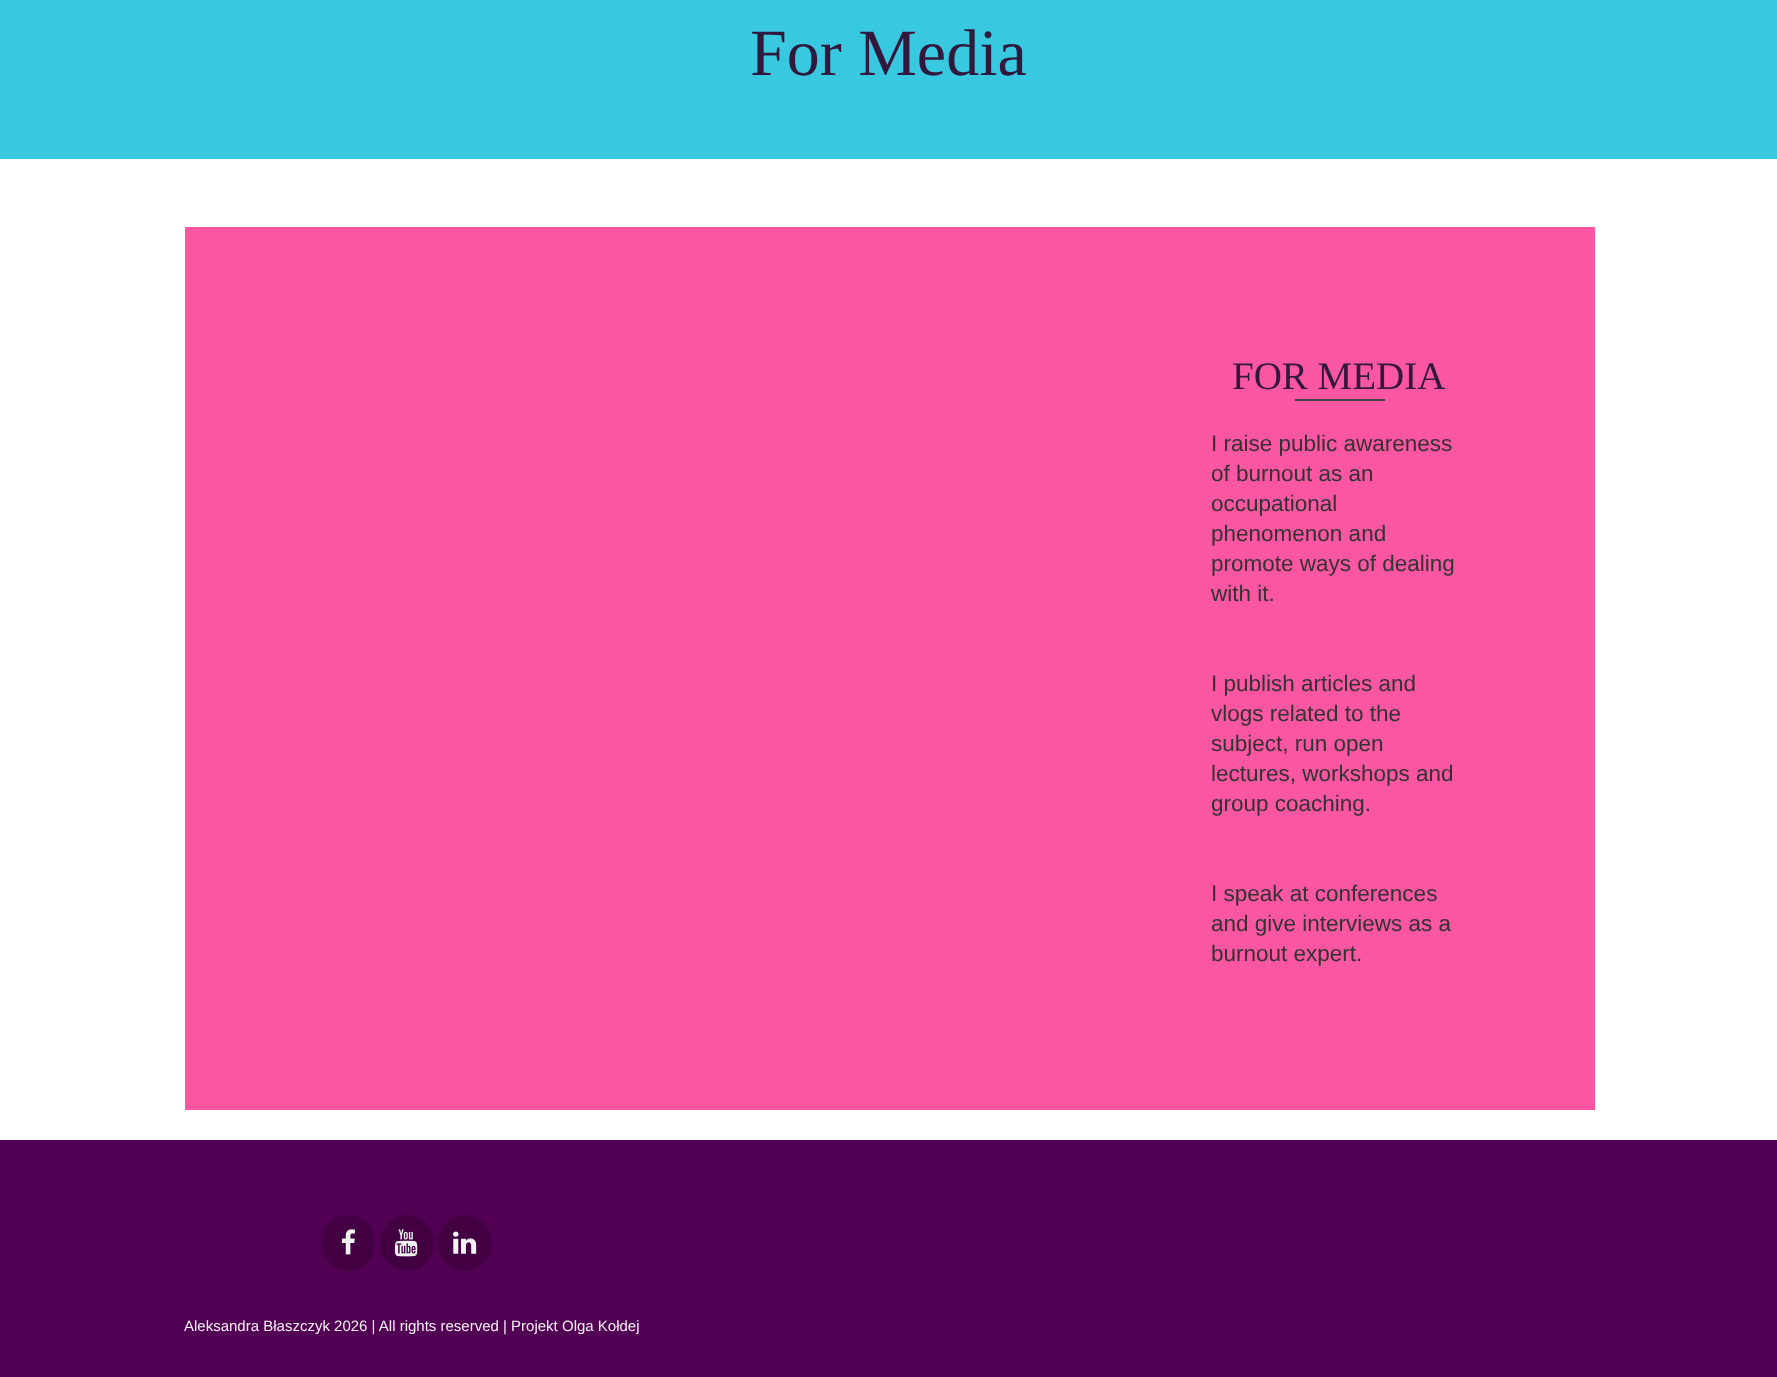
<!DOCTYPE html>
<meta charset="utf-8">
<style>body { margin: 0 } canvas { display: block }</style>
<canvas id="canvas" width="1777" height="1377"></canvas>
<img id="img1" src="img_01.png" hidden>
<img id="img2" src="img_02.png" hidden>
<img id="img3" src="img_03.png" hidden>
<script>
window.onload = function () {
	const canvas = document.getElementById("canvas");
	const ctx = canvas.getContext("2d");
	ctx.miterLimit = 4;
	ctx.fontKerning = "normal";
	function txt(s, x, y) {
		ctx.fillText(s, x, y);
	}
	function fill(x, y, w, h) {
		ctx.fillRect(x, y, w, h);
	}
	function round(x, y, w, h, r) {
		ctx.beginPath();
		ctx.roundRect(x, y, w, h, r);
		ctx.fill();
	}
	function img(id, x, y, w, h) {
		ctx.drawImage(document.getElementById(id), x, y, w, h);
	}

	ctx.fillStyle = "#FFFFFF";
	fill(0, 0, 1777, 1377);
	ctx.fillStyle = "#38C9E0";
	fill(0, 0, 1777, 159);
	ctx.fillStyle = "#FA56A1";
	fill(185, 227, 1410, 883);
	ctx.fillStyle = "#444444";
	fill(1295, 399, 90, 2);
	ctx.fillStyle = "#520054";
	fill(0, 1140, 1777, 237);
	ctx.fillStyle = "#420043";
	round(321, 1215, 54, 56, 27);
	img("img1", 341, 1229, 14, 26);
	round(380, 1215, 54, 56, 27);
	img("img2", 394, 1229, 24, 28);
	round(438, 1215, 54, 56, 27);
	img("img3", 453, 1231, 24, 23);
	ctx.font = "66px Liberation Serif";
	ctx.fillStyle = "#31183D";
	txt("For Media", 750, 75);
	ctx.font = "39px Liberation Serif";
	txt("FOR MEDIA", 1232, 389);
	ctx.font = "22.5px Liberation Sans";
	ctx.fillStyle = "#333333";
	txt("I raise public awareness", 1211, 451);
	txt("of burnout as an", 1211, 481);
	txt("occupational", 1211, 511);
	txt("phenomenon and", 1211, 541);
	txt("promote ways of dealing", 1211, 571);
	txt("with it.", 1211, 601);
	txt("I publish articles and", 1211, 691);
	txt("vlogs related to the", 1211, 721);
	txt("subject, run open", 1211, 751);
	txt("lectures, workshops and", 1211, 781);
	txt("group coaching.", 1211, 811);
	txt("I speak at conferences", 1211, 901);
	txt("and give interviews as a", 1211, 931);
	txt("burnout expert.", 1211, 961);
	ctx.font = "15px Liberation Sans";
	ctx.fillStyle = "#F2F2F2";
	txt("Aleksandra Błaszczyk 2026 | All rights reserved | Projekt Olga Kołdej", 184, 1331);
};
</script>
